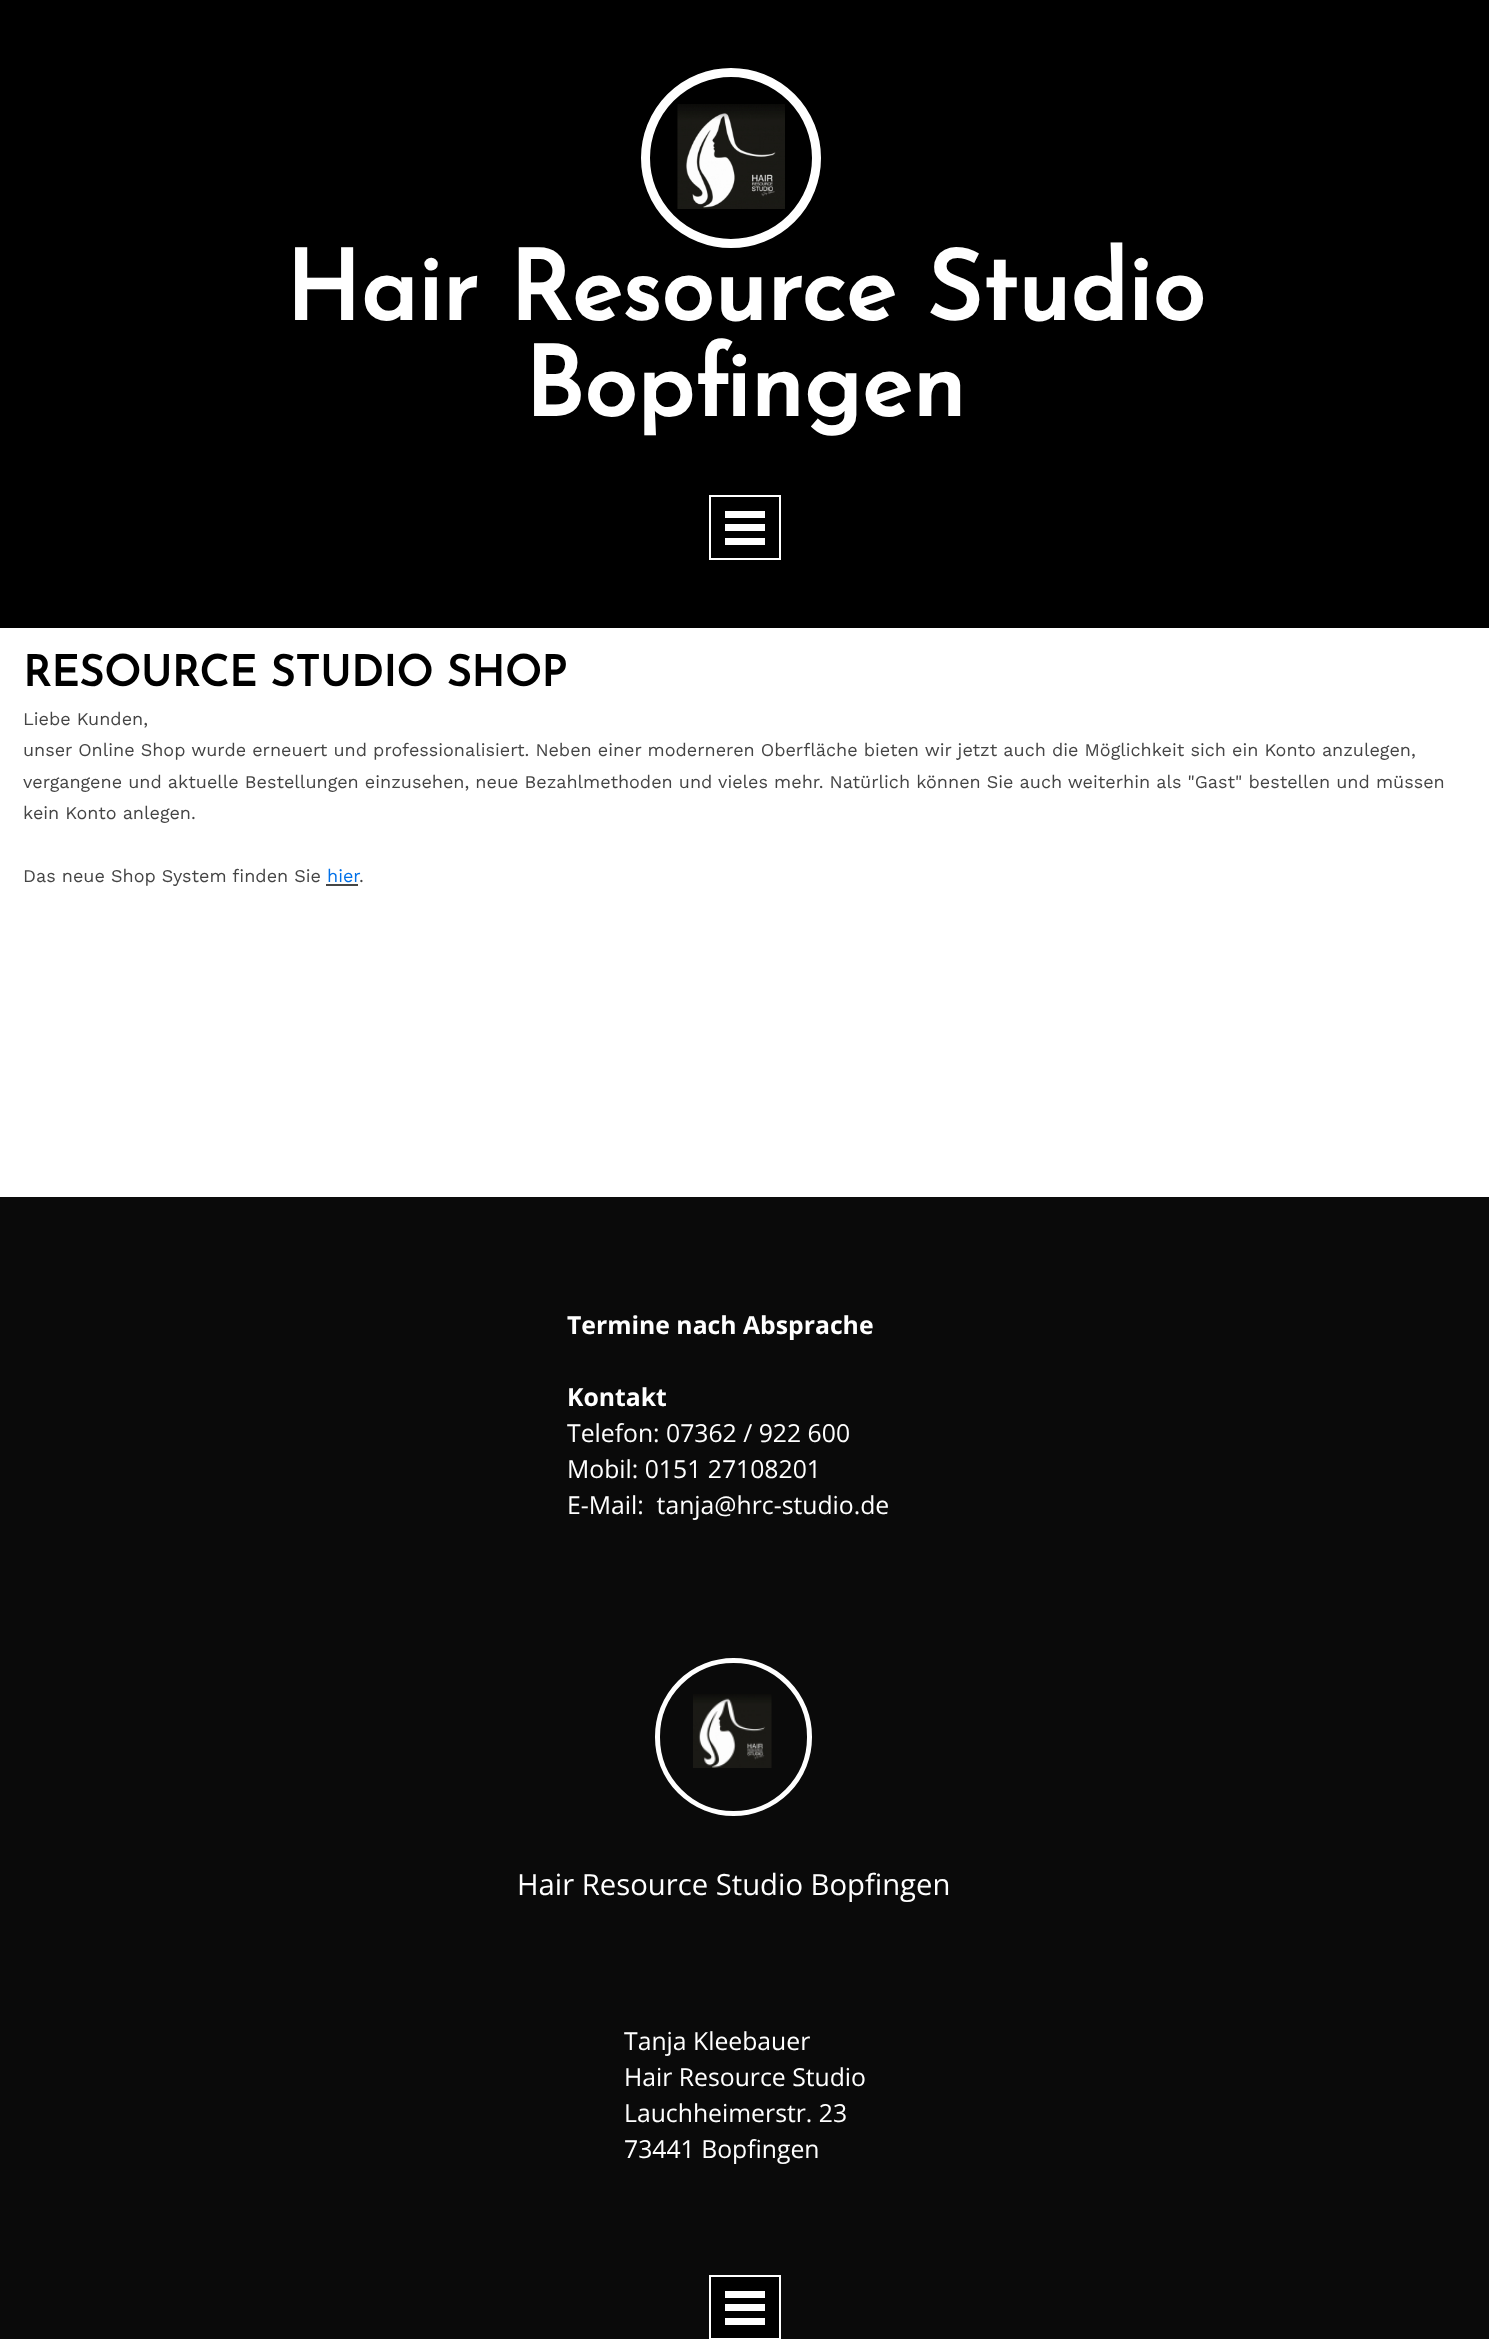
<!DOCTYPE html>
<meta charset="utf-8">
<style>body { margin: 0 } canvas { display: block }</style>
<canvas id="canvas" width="1489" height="2339"></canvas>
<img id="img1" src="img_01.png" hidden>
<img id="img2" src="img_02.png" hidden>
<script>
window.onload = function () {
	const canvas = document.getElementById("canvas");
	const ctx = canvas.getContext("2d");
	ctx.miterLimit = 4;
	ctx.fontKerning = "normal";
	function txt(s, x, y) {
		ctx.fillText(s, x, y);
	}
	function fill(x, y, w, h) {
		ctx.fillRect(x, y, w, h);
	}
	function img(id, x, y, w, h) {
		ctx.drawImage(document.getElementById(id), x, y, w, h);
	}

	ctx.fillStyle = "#FFFFFF";
	fill(0, 0, 1489, 2339);
	ctx.fillStyle = "#000000";
	fill(0, 0, 1489, 628);
	ctx.beginPath();
	ctx.arc(731, 158, 85.5, 0, Math.PI * 2);
	ctx.strokeStyle = "#FFFFFF";
	ctx.lineWidth = 9;
	ctx.stroke();
	img("img1", 677, 104, 108, 105);
	ctx.lineWidth = 2;
	ctx.strokeRect(710, 496, 70, 63);
	ctx.fillStyle = "#FFFFFF";
	fill(725, 511, 40, 7);
	fill(725, 524, 40, 7);
	fill(725, 538, 40, 7);
	ctx.fillStyle = "#454545";
	fill(326, 884, 32, 2);
	ctx.fillStyle = "#0A0A0A";
	fill(0, 1197, 1489, 1142);
	ctx.beginPath();
	ctx.roundRect(657.5, 1660.5, 152, 153, 76);
	ctx.lineWidth = 5;
	ctx.stroke();
	img("img2", 693, 1694, 79, 74);
	ctx.fillStyle = "#000000";
	ctx.beginPath();
	ctx.rect(710, 2276, 70, 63);
	ctx.fill();
	ctx.lineWidth = 2;
	ctx.stroke();
	ctx.fillStyle = "#FFFFFF";
	fill(725, 2291, 40, 7);
	fill(725, 2304, 40, 7);
	fill(725, 2318, 40, 7);
	ctx.font = "bold 96.75px Josefin Sans";
	txt("Hair Resource Studio", 285, 320);
	txt("Bopfingen", 524, 416);
	ctx.font = "bold 42.75px Josefin Sans";
	ctx.fillStyle = "#000000";
	txt("RESOURCE STUDIO SHOP", 23, 686);
	ctx.font = "18px Work Sans";
	ctx.fillStyle = "#454545";
	txt("Liebe Kunden,", 23, 725);
	txt("unser Online Shop wurde erneuert und professionalisiert. Neben einer moderneren Oberfläche bieten wir jetzt auch die Möglichkeit sich ein Konto anzulegen,", 23, 756);
	txt("vergangene und aktuelle Bestellungen einzusehen, neue Bezahlmethoden und vieles mehr. Natürlich können Sie auch weiterhin als \"Gast\" bestellen und müssen", 23, 788);
	txt("kein Konto anlegen.", 23, 819);
	txt("Das neue Shop System finden Sie", 23, 882);
	ctx.fillStyle = "#0070E8";
	txt("hier", 327, 882);
	ctx.fillStyle = "#454545";
	txt(".", 359, 882);
	ctx.font = "bold 24.75px Open Sans";
	ctx.fillStyle = "#FFFFFF";
	txt("Termine nach Absprache", 567, 1334);
	txt("Kontakt", 567, 1406);
	ctx.font = "24.75px Open Sans";
	txt("Telefon: 07362 / 922 600", 567, 1442);
	txt("Mobil: 0151 27108201", 567, 1478);
	txt("E-Mail:  tanja@hrc-studio.de", 567, 1514);
	ctx.font = "29.25px Open Sans";
	txt("Hair Resource Studio Bopfingen", 517, 1895);
	ctx.font = "24.75px Open Sans";
	txt("Tanja Kleebauer", 624, 2050);
	txt("Hair Resource Studio", 624, 2086);
	txt("Lauchheimerstr. 23", 624, 2122);
	txt("73441 Bopfingen", 624, 2158);
};
</script>
